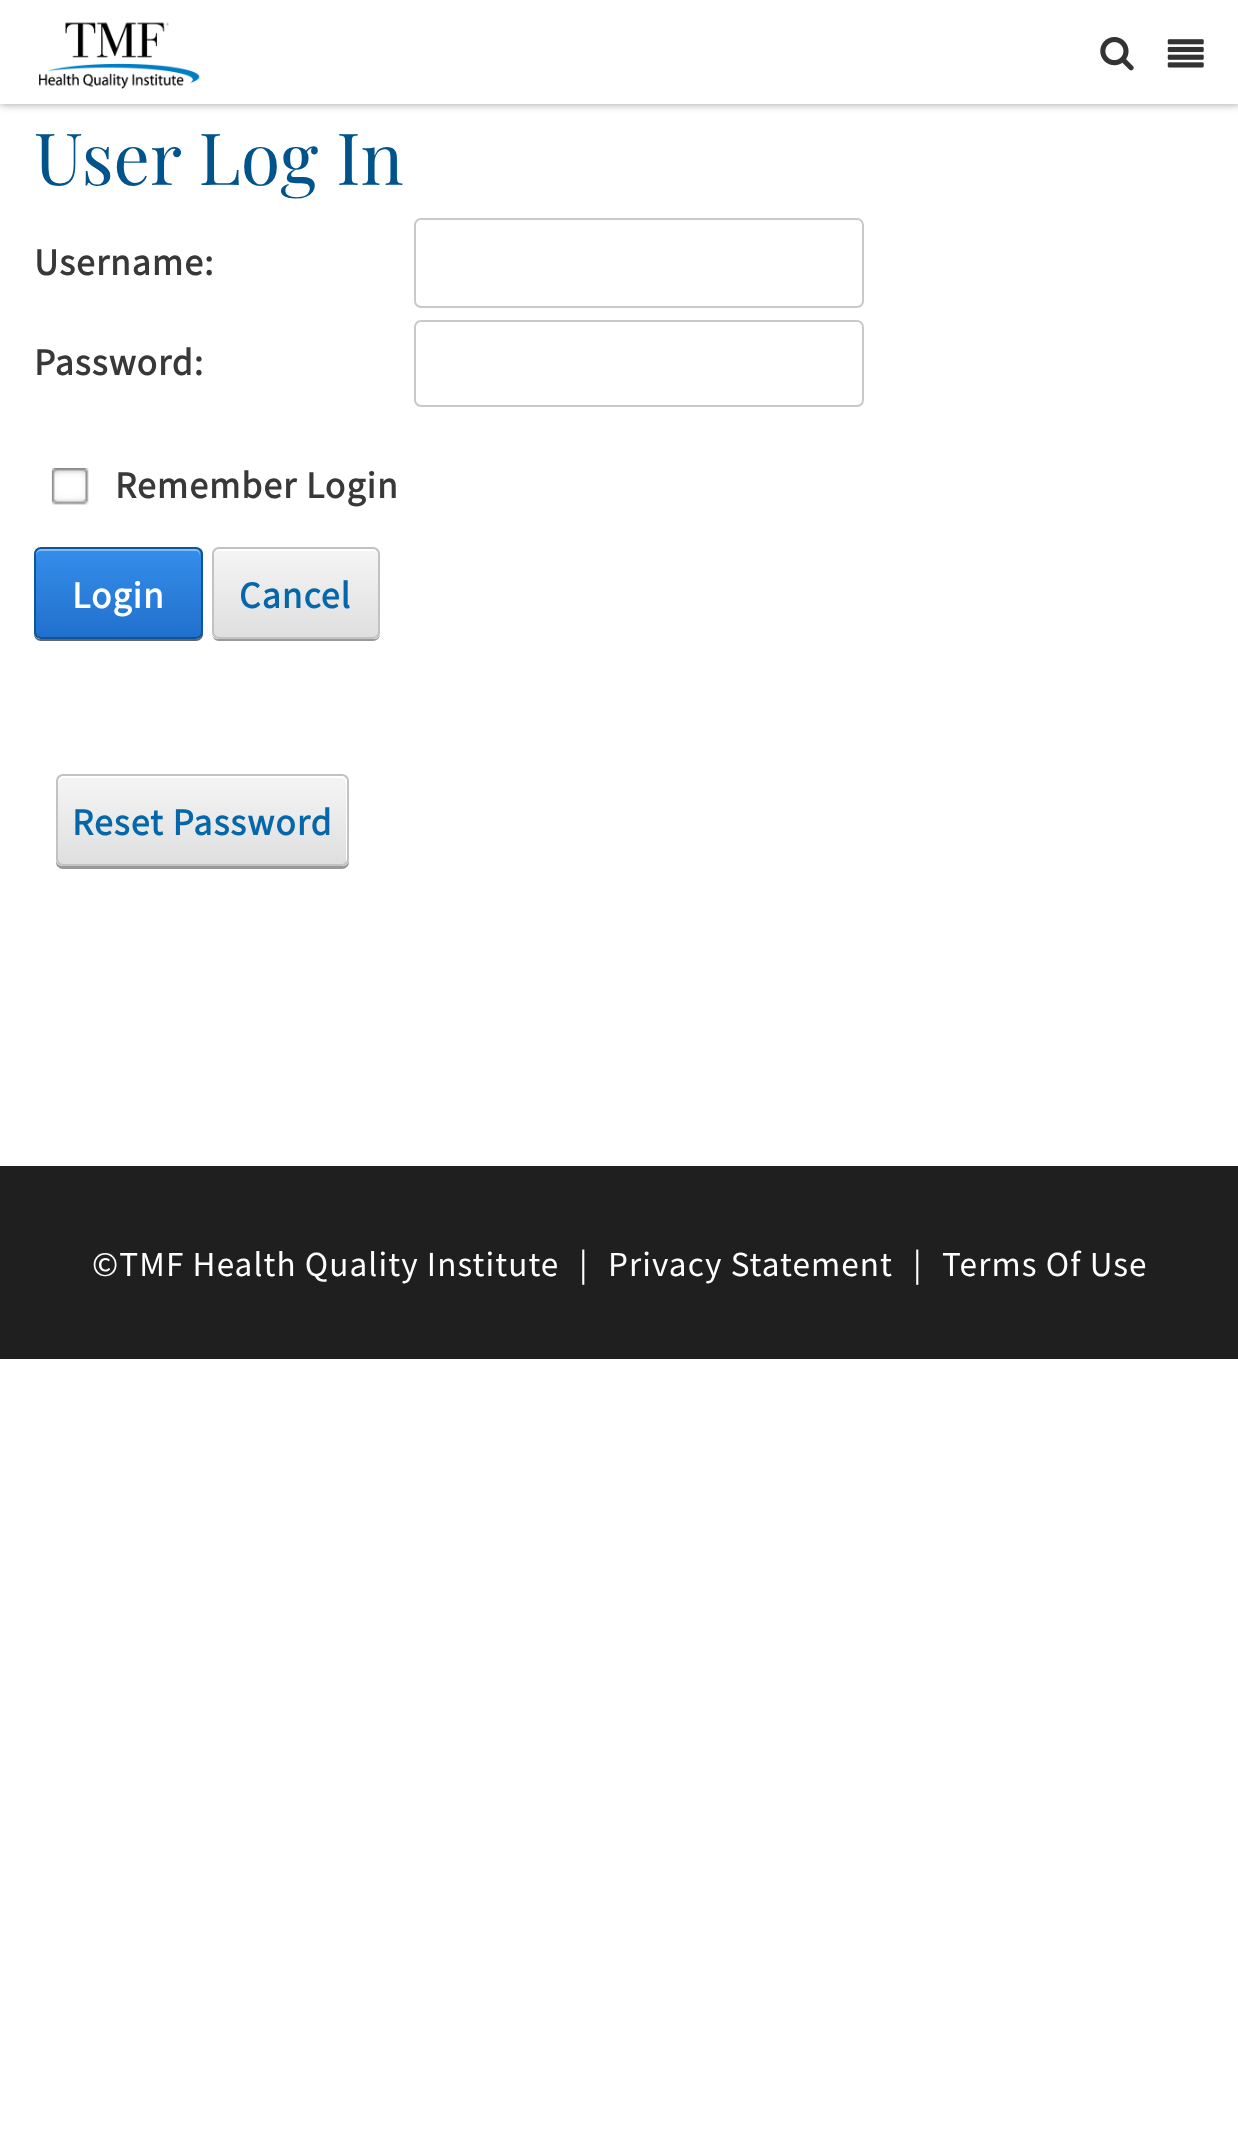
<!DOCTYPE html>
<meta charset="utf-8">
<style>body { margin: 0 } canvas { display: block }</style>
<canvas id="canvas" width="1238" height="2154"></canvas>
<img id="img1" src="img_01.png" hidden>
<img id="img2" src="img_02.png" hidden>
<img id="img3" src="img_03.png" hidden>
<img id="img4" src="img_04.png" hidden>
<script>
window.onload = function () {
	const canvas = document.getElementById("canvas");
	const ctx = canvas.getContext("2d");
	ctx.miterLimit = 4;
	ctx.fontKerning = "normal";
	function txt(s, x, y) {
		ctx.fillText(s, x, y);
	}
	function fill(x, y, w, h) {
		ctx.fillRect(x, y, w, h);
	}
	function img(id, x, y, w, h) {
		ctx.drawImage(document.getElementById(id), x, y, w, h);
	}
	let gradient;

	ctx.fillStyle = "#FFFFFF";
	fill(0, 0, 1238, 2154);
	ctx.fillStyle = "rgba(0, 0, 0, 0.4)";
	ctx.filter = "blur(4.5px)";
	ctx.beginPath();
	ctx.rect(0, 0, 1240, 104);
	ctx.fill();
	ctx.filter = "none";
	ctx.fillStyle = "#FFFFFF";
	fill(0, 0, 1238, 104);
	img("img1", 39, 22, 161, 67);
	img("img2", 1100, 37, 34, 34);
	img("img3", 1167, 39, 37, 29);
	ctx.beginPath();
	ctx.roundRect(415, 219, 448, 88, 6);
	ctx.strokeStyle = "#C9C9C9";
	ctx.lineWidth = 2;
	ctx.stroke();
	ctx.beginPath();
	ctx.roundRect(415, 321, 448, 85, 6);
	ctx.stroke();
	img("img4", 51, 468, 38, 37);
	ctx.fillStyle = "#666666";
	ctx.beginPath();
	ctx.moveTo(34, 634);
	ctx.bezierCurveTo(34, 638, 37, 641, 41, 641);
	ctx.lineTo(196, 641);
	ctx.bezierCurveTo(200, 641, 203, 638, 203, 634);
	ctx.lineTo(203, 556);
	ctx.lineTo(202, 553);
	ctx.lineTo(202, 634);
	ctx.lineTo(201, 637);
	ctx.bezierCurveTo(199, 638, 198, 639, 196, 639);
	ctx.lineTo(39, 639);
	ctx.bezierCurveTo(37, 638, 35, 637, 34, 634);
	ctx.closePath();
	ctx.fill();
	ctx.save();
	ctx.beginPath();
	ctx.roundRect(34, 547, 169, 92, 7);
	ctx.clip();
	gradient = ctx.createLinearGradient(118, 549, 118, 637);
	gradient.addColorStop(0, "#358EEA");
	gradient.addColorStop(1, "#2170CD");
	ctx.fillStyle = gradient;
	fill(34, 549, 169, 88);
	ctx.restore();
	ctx.fillStyle = "#86BBF2";
	ctx.beginPath();
	ctx.moveTo(40, 551);
	ctx.lineTo(196, 551);
	ctx.bezierCurveTo(198, 551, 200, 553, 200, 556);
	ctx.lineTo(200, 554);
	ctx.bezierCurveTo(200, 551, 198, 549, 195, 549);
	ctx.lineTo(41, 549);
	ctx.bezierCurveTo(38, 549, 36, 551, 36, 554);
	ctx.lineTo(36, 556);
	ctx.bezierCurveTo(36, 553, 38, 551, 40, 551);
	ctx.closePath();
	ctx.fill();
	ctx.beginPath();
	ctx.roundRect(35, 548, 167, 90, 6);
	ctx.strokeStyle = "#0D569E";
	ctx.stroke();
	ctx.fillStyle = "#999999";
	ctx.beginPath();
	ctx.moveTo(212, 635);
	ctx.bezierCurveTo(213, 638, 215, 641, 219, 641);
	ctx.lineTo(373, 641);
	ctx.bezierCurveTo(377, 641, 380, 638, 380, 634);
	ctx.bezierCurveTo(379, 637, 377, 639, 374, 639);
	ctx.lineTo(218, 639);
	ctx.bezierCurveTo(215, 639, 213, 637, 212, 635);
	ctx.closePath();
	ctx.fill();
	ctx.save();
	ctx.beginPath();
	ctx.roundRect(212, 547, 168, 92, 7);
	ctx.clip();
	gradient = ctx.createLinearGradient(296, 549, 296, 637);
	gradient.addColorStop(0, "#F5F5F5");
	gradient.addColorStop(1, "#DFDFDF");
	ctx.fillStyle = gradient;
	fill(212, 549, 168, 88);
	ctx.restore();
	ctx.fillStyle = "#FFFFFF";
	ctx.beginPath();
	ctx.moveTo(218, 551);
	ctx.lineTo(374, 551);
	ctx.bezierCurveTo(376, 551, 378, 553, 378, 556);
	ctx.lineTo(378, 554);
	ctx.bezierCurveTo(378, 551, 376, 549, 373, 549);
	ctx.lineTo(219, 549);
	ctx.bezierCurveTo(216, 549, 214, 551, 214, 554);
	ctx.lineTo(214, 556);
	ctx.bezierCurveTo(214, 553, 216, 551, 218, 551);
	ctx.closePath();
	ctx.fill();
	ctx.beginPath();
	ctx.roundRect(213, 548, 166, 90, 6);
	ctx.strokeStyle = "#C2C2C2";
	ctx.stroke();
	ctx.fillStyle = "#999999";
	ctx.beginPath();
	ctx.moveTo(56, 781);
	ctx.lineTo(56, 862);
	ctx.bezierCurveTo(56, 866, 59, 869, 63, 869);
	ctx.lineTo(342, 869);
	ctx.bezierCurveTo(346, 869, 349, 866, 349, 862);
	ctx.lineTo(349, 781);
	ctx.lineTo(349, 860);
	ctx.bezierCurveTo(349, 863, 346, 866, 342, 866);
	ctx.lineTo(63, 866);
	ctx.bezierCurveTo(59, 866, 56, 863, 56, 860);
	ctx.closePath();
	ctx.fill();
	ctx.save();
	ctx.beginPath();
	ctx.roundRect(56, 774, 293, 92, 7);
	ctx.clip();
	gradient = ctx.createLinearGradient(203, 776, 203, 864);
	gradient.addColorStop(0, "#F5F5F5");
	gradient.addColorStop(1, "#DFDFDF");
	ctx.fillStyle = gradient;
	fill(56, 776, 293, 88);
	ctx.restore();
	ctx.fillStyle = "#FFFFFF";
	ctx.beginPath();
	ctx.moveTo(63, 778);
	ctx.lineTo(342, 778);
	ctx.bezierCurveTo(344, 778, 346, 781, 346, 783);
	ctx.lineTo(346, 862);
	ctx.bezierCurveTo(347, 861, 347, 860, 347, 859);
	ctx.lineTo(347, 781);
	ctx.bezierCurveTo(347, 778, 345, 776, 342, 776);
	ctx.lineTo(64, 776);
	ctx.bezierCurveTo(61, 776, 59, 778, 59, 781);
	ctx.bezierCurveTo(60, 779, 62, 778, 63, 778);
	ctx.closePath();
	ctx.fill();
	ctx.beginPath();
	ctx.roundRect(57, 775, 291, 90, 6);
	ctx.stroke();
	ctx.fillStyle = "#1F1F1F";
	fill(0, 1166, 1238, 193);
	ctx.font = "72px Playfair Display";
	ctx.fillStyle = "#00538B";
	txt("User Log In", 34, 185);
	ctx.letterSpacing = "1.1px";
	ctx.font = "bold 33.75px Noto Sans JP";
	ctx.fillStyle = "#383838";
	txt("Username:", 34, 275);
	txt("Password:", 34, 375);
	txt("Remember Login", 115, 498);
	ctx.fillStyle = "#FFFFFF";
	txt("Login", 72, 608);
	ctx.fillStyle = "#0567A9";
	txt("Cancel", 239, 608);
	txt("Reset Password", 72, 835);
	ctx.font = "100 31.5px Noto Sans JP";
	ctx.fillStyle = "#FFFFFF";
	txt("©TMF Health Quality Institute", 92, 1276);
	txt("|", 579, 1276);
	txt("Privacy Statement", 608, 1276);
	txt("|", 913, 1276);
	txt("Terms Of Use", 942, 1276);
};
</script>
